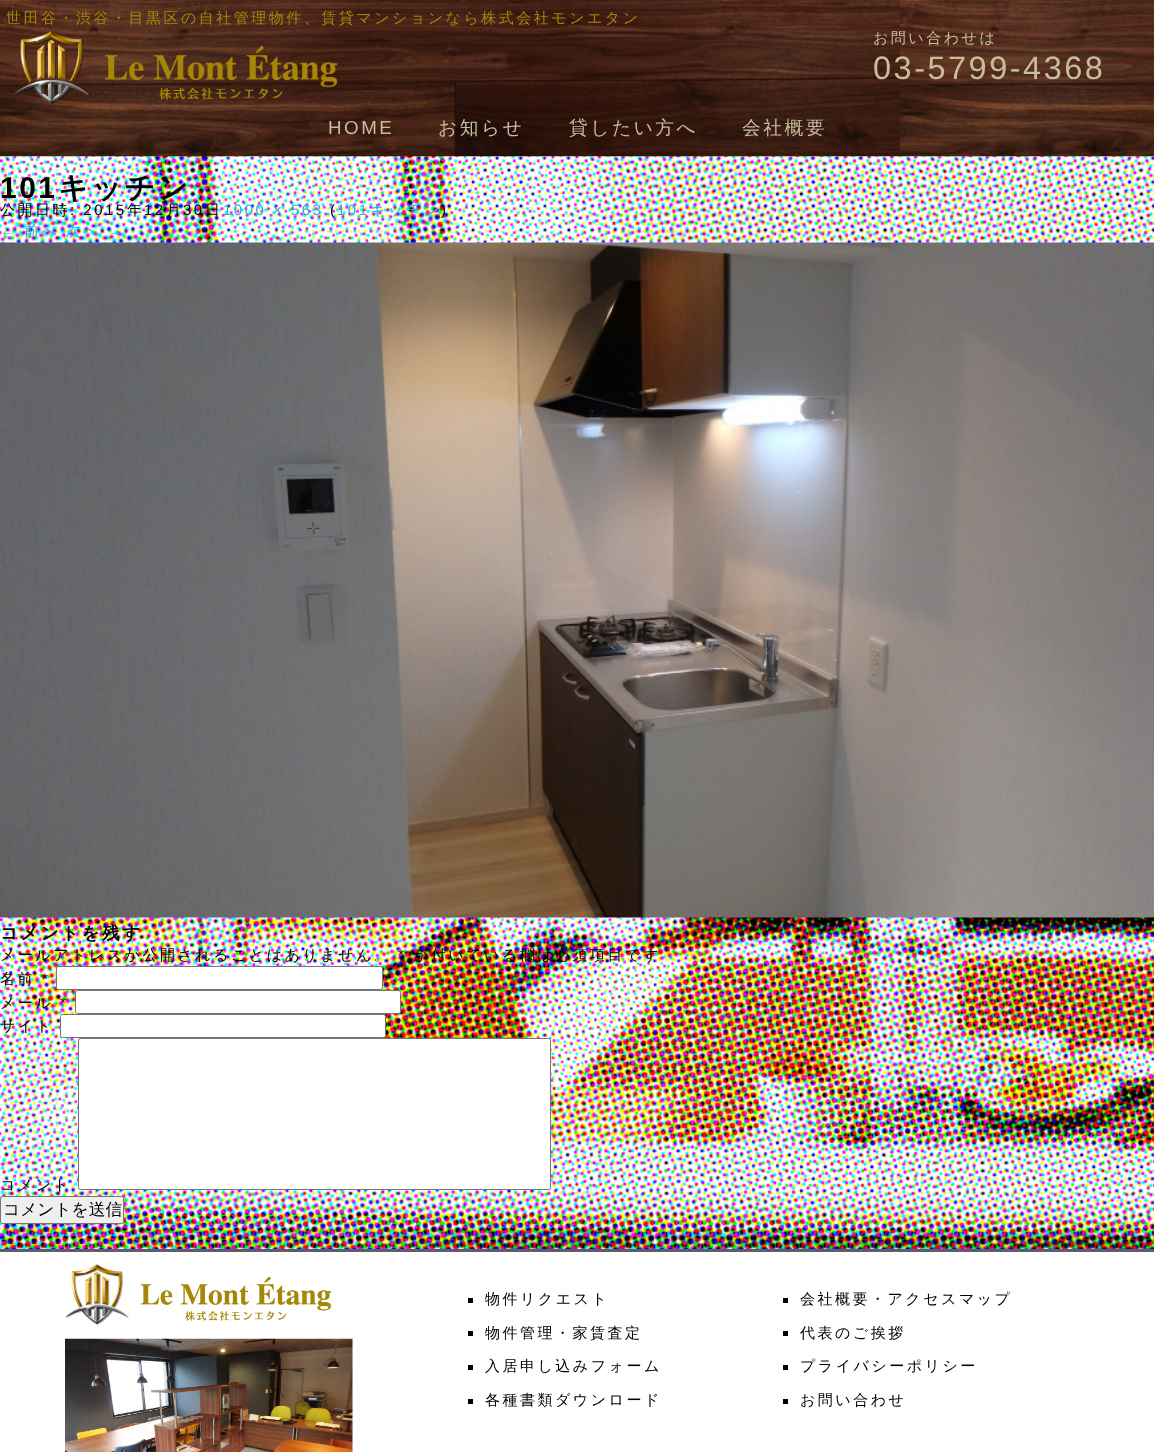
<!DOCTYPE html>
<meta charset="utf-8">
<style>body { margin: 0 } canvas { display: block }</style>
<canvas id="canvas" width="1154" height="1452"></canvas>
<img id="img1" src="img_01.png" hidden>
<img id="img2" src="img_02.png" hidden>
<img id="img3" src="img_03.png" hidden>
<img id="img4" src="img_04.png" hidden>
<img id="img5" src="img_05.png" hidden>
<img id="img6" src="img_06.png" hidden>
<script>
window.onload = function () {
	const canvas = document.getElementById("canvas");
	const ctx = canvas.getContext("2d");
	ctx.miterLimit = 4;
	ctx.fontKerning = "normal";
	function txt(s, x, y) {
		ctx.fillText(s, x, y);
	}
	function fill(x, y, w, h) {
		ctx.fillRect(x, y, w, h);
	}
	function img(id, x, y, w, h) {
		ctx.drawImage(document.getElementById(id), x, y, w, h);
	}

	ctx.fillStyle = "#FFFFFF";
	fill(0, 0, 1154, 1452);
	img("img1", 0, 156, 1154, 1093);
	img("img2", 0, 0, 1154, 157);
	img("img3", 13, 31, 325, 74);
	img("img4", 0, 242, 1154, 676);
	ctx.beginPath();
	ctx.roundRect(56.5, 966.5, 326, 23, 2);
	ctx.fill();
	ctx.strokeStyle = "#767676";
	ctx.stroke();
	ctx.beginPath();
	ctx.roundRect(75.5, 990.5, 325, 23, 2);
	ctx.fill();
	ctx.stroke();
	ctx.beginPath();
	ctx.roundRect(60.5, 1014.5, 325, 23, 2);
	ctx.fill();
	ctx.stroke();
	ctx.beginPath();
	ctx.roundRect(78.5, 1038.5, 472, 151, 2);
	ctx.fill();
	ctx.stroke();
	ctx.fillStyle = "#EFEFEF";
	ctx.beginPath();
	ctx.roundRect(0.5, 1196.5, 123, 27, 2);
	ctx.fill();
	ctx.stroke();
	ctx.fillStyle = "#5F5F5F";
	fill(0, 1249, 1154, 3);
	img("img5", 65, 1264, 267, 61);
	img("img6", 65, 1338, 288, 114);
	ctx.fillStyle = "#000000";
	fill(468, 1298, 5, 5);
	fill(468, 1331, 5, 5);
	fill(468, 1365, 5, 5);
	fill(468, 1399, 5, 5);
	fill(783, 1298, 5, 5);
	fill(783, 1331, 5, 5);
	fill(783, 1365, 5, 5);
	fill(783, 1399, 5, 5);
	ctx.letterSpacing = "2.5px";
	ctx.font = "500 15px WenQuanYi Zen Hei";
	ctx.fillStyle = "#A78608";
	txt("世田谷・渋谷・目黒区の自社管理物件、賃貸マンションなら株式会社モンエタン", 6, 23);
	ctx.fillStyle = "#C9BC9C";
	txt("お問い合わせは", 873, 43);
	ctx.font = "32.5px Liberation Sans";
	txt("03-5799-4368", 873, 79);
	ctx.font = "18.75px Liberation Sans";
	txt("HOME", 328, 134);
	ctx.font = "500 18.75px WenQuanYi Zen Hei";
	txt("お知らせ", 438, 134);
	txt("貸したい方へ", 569, 134);
	txt("会社概要", 742, 134);
	ctx.font = "bold 30px Liberation Sans";
	ctx.fillStyle = "#000000";
	txt("101", 0, 198);
	ctx.font = "bold 30px WenQuanYi Zen Hei";
	txt("キッチン", 58, 198);
	ctx.font = "500 15px WenQuanYi Zen Hei";
	txt("公開日時", 0, 215);
	ctx.font = "15px Liberation Sans";
	txt(": 2015", 70, 215);
	ctx.font = "500 15px WenQuanYi Zen Hei";
	txt("年", 127, 215);
	ctx.font = "15px Liberation Sans";
	txt("12", 144, 215);
	ctx.font = "500 15px WenQuanYi Zen Hei";
	txt("月", 166, 215);
	ctx.font = "15px Liberation Sans";
	txt("30", 183, 215);
	ctx.font = "500 15px WenQuanYi Zen Hei";
	txt("日", 205, 215);
	ctx.font = "15px Liberation Sans";
	ctx.fillStyle = "#2EA7E0";
	txt("1000 × 563", 223, 215);
	ctx.fillStyle = "#000000";
	txt("(", 330, 215);
	ctx.fillStyle = "#2EA7E0";
	txt("101", 337, 215);
	ctx.font = "500 15px WenQuanYi Zen Hei";
	txt("キッチン", 370, 215);
	ctx.font = "15px Liberation Sans";
	ctx.fillStyle = "#000000";
	txt(")", 441, 215);
	ctx.fillStyle = "#2EA7E0";
	txt("←", 0, 236);
	ctx.font = "500 15px WenQuanYi Zen Hei";
	txt("前へ", 24, 236);
	txt("次へ", 66, 236);
	ctx.font = "15px Liberation Sans";
	txt("→", 108, 236);
	ctx.font = "bold 17.5px WenQuanYi Zen Hei";
	ctx.fillStyle = "#000000";
	txt("コメントを残す", 0, 939);
	ctx.font = "500 15px WenQuanYi Zen Hei";
	txt("メールアドレスが公開されることはありません。", 0, 960);
	ctx.font = "15px Liberation Sans";
	txt("*", 398, 960);
	ctx.font = "500 15px WenQuanYi Zen Hei";
	txt("が付いている欄は必須項目です", 413, 960);
	txt("名前", 0, 984);
	ctx.font = "15px Liberation Sans";
	txt("*", 42, 984);
	ctx.font = "500 15px WenQuanYi Zen Hei";
	txt("メール", 0, 1008);
	ctx.font = "15px Liberation Sans";
	txt("*", 60, 1008);
	ctx.font = "500 15px WenQuanYi Zen Hei";
	txt("サイト", 0, 1031);
	txt("コメント", 0, 1190);
	ctx.letterSpacing = "0px";
	ctx.font = "500 16.75px WenQuanYi Zen Hei";
	txt("コメントを送信", 3, 1215);
	ctx.letterSpacing = "2.5px";
	ctx.font = "500 15px WenQuanYi Zen Hei";
	txt("物件リクエスト", 485, 1304);
	txt("物件管理・家賃査定", 485, 1338);
	txt("入居申し込みフォーム", 485, 1371);
	txt("各種書類ダウンロード", 485, 1405);
	txt("会社概要・アクセスマップ", 800, 1304);
	txt("代表のご挨拶", 800, 1338);
	txt("プライバシーポリシー", 800, 1371);
	txt("お問い合わせ", 800, 1405);
};
</script>
